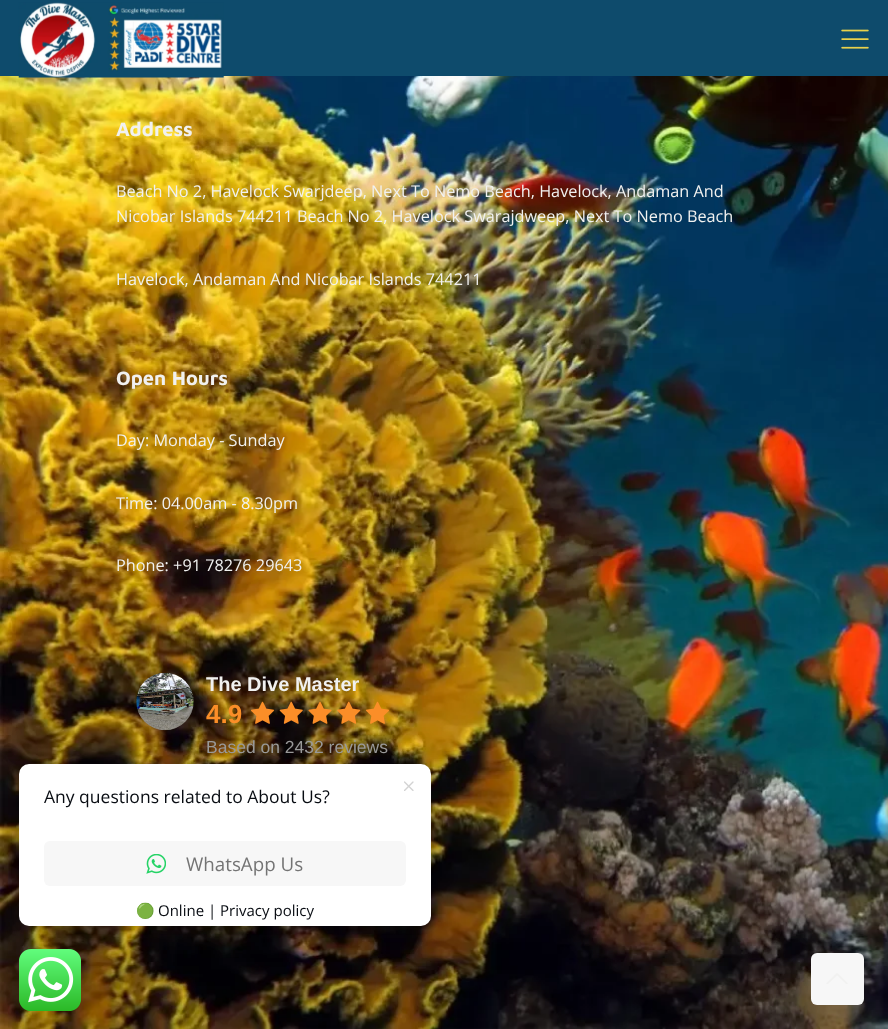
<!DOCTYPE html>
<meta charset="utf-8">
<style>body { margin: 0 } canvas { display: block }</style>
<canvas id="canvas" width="888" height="1029"></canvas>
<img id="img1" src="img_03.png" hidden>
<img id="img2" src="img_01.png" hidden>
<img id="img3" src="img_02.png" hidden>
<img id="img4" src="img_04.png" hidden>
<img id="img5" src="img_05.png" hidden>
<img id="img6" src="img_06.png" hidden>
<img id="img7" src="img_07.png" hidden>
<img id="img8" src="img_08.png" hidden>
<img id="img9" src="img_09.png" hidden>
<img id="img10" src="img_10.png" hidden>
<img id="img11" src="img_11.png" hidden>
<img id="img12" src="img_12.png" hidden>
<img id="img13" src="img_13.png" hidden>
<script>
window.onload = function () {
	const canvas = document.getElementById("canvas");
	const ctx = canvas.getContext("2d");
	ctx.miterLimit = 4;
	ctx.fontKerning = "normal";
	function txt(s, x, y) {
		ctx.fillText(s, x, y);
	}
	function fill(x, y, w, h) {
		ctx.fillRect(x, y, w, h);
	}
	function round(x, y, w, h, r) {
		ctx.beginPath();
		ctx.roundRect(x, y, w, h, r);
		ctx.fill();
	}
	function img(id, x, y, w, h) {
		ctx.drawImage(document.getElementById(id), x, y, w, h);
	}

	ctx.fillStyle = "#FFFFFF";
	fill(0, 0, 888, 1029);
	ctx.fillStyle = "#0E4B6C";
	fill(0, 0, 888, 76);
	img("img1", 0, 76, 888, 953);
	img("img2", 18, 2, 206, 76);
	img("img3", 841, 29, 28, 20);
	img("img4", 136, 673, 58, 58);
	img("img5", 251, 701, 24, 23);
	img("img6", 279, 701, 24, 23);
	img("img7", 308, 701, 24, 23);
	img("img8", 337, 701, 24, 23);
	img("img9", 366, 701, 23, 23);
	ctx.fillStyle = "rgba(0, 0, 0, 0.14)";
	ctx.filter = "blur(3px)";
	ctx.beginPath();
	ctx.roundRect(18, 763, 415, 165, 11);
	ctx.fill();
	ctx.filter = "none";
	ctx.fillStyle = "#FFFFFF";
	ctx.beginPath();
	ctx.roundRect(19, 764, 412, 65, [10, 10, 0, 0]);
	ctx.fill();
	img("img10", 404, 781, 10, 10);
	fill(19, 829, 412, 67);
	ctx.fillStyle = "#F7F7F7";
	round(44, 841, 362, 45, 6);
	img("img11", 146, 854, 20, 20);
	ctx.fillStyle = "#FFFFFF";
	ctx.beginPath();
	ctx.roundRect(19, 896, 412, 30, [0, 0, 10, 10]);
	ctx.fill();
	img("img12", 19, 949, 62, 62);
	ctx.fillStyle = "#F7F7F7";
	round(811, 953, 53, 52, 6);
	img("img13", 826, 973, 22, 11);
	ctx.font = "bold 20px Maven Pro";
	ctx.fillStyle = "#F1F1F0";
	txt("Address", 116, 136);
	ctx.font = "16.25px Open Sans";
	txt("Beach No 2, Havelock Swarjdeep, Next To Nemo Beach, Havelock, Andaman And", 116, 197);
	txt("Nicobar Islands 744211 Beach No 2, Havelock Swarajdweep, Next To Nemo Beach", 116, 222);
	txt("Havelock, Andaman And Nicobar Islands 744211", 116, 285);
	ctx.font = "bold 20px Maven Pro";
	txt("Open Hours", 116, 385);
	ctx.font = "16.25px Open Sans";
	txt("Day: Monday - Sunday", 116, 446);
	txt("Time: 04.00am - 8.30pm", 116, 509);
	txt("Phone: +91 78276 29643", 116, 571);
	ctx.font = "bold 20px Liberation Sans";
	txt("The Dive Master", 206, 691);
	ctx.font = "bold 26px Liberation Sans";
	ctx.fillStyle = "#FB8E28";
	txt("4.9", 206, 723);
	ctx.font = "17.5px Liberation Sans";
	ctx.fillStyle = "#999999";
	txt("Based on 2432 reviews", 206, 753);
	ctx.font = "17.5px Open Sans";
	ctx.fillStyle = "#080C12";
	txt("Any questions related to About Us?", 44, 803);
	ctx.font = "18.75px Open Sans";
	ctx.fillStyle = "#747474";
	txt("WhatsApp Us", 186, 871);
	ctx.font = "15px Noto Color Emoji";
	ctx.fillStyle = "#080C12";
	txt("🟢", 136, 916);
	ctx.font = "15px Open Sans";
	txt("Online | Privacy policy", 158, 916);
};
</script>
